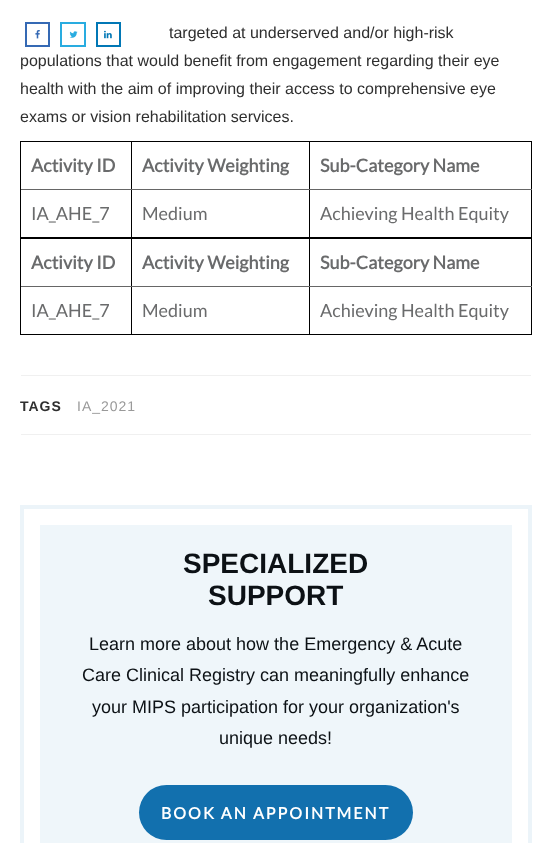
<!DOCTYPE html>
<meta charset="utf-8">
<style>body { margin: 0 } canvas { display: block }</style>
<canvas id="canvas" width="552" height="843"></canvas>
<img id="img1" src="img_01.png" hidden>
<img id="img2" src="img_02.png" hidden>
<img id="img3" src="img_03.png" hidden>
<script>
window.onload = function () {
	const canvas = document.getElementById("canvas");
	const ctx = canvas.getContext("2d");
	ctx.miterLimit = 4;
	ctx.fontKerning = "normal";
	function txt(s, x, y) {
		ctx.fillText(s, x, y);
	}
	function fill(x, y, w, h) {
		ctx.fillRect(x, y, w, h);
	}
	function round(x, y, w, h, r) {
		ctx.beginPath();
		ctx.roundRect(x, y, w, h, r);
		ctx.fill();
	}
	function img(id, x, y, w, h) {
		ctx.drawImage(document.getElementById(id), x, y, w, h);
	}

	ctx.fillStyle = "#FFFFFF";
	fill(0, 0, 552, 843);
	ctx.strokeStyle = "#3569B4";
	ctx.lineWidth = 2;
	ctx.strokeRect(26, 23, 23, 23);
	img("img1", 35, 30, 5, 9);
	ctx.strokeStyle = "#29ACE0";
	ctx.strokeRect(61, 23, 24, 23);
	img("img2", 69, 31, 9, 7);
	ctx.strokeStyle = "#0177B5";
	ctx.strokeRect(97, 23, 23, 23);
	img("img3", 104, 30, 8, 9);
	ctx.fillStyle = "#000000";
	fill(20, 141, 512, 1);
	fill(531, 141, 1, 97);
	fill(20, 237, 512, 2);
	fill(20, 190, 1, 48);
	fill(309, 189, 1, 49);
	ctx.fillStyle = "#666666";
	fill(309, 189, 223, 1);
	ctx.fillStyle = "#000000";
	fill(309, 141, 1, 49);
	fill(131, 189, 1, 49);
	ctx.fillStyle = "#666666";
	fill(131, 189, 179, 1);
	ctx.fillStyle = "#000000";
	fill(131, 141, 1, 49);
	ctx.fillStyle = "#666666";
	fill(20, 189, 112, 1);
	ctx.fillStyle = "#000000";
	fill(20, 141, 1, 49);
	fill(531, 238, 1, 97);
	fill(20, 334, 512, 1);
	fill(20, 287, 1, 48);
	fill(309, 286, 1, 49);
	ctx.fillStyle = "#666666";
	fill(309, 286, 223, 1);
	ctx.fillStyle = "#000000";
	fill(309, 238, 1, 49);
	fill(131, 286, 1, 49);
	ctx.fillStyle = "#666666";
	fill(131, 286, 179, 1);
	ctx.fillStyle = "#000000";
	fill(131, 238, 1, 49);
	ctx.fillStyle = "#666666";
	fill(20, 286, 112, 1);
	ctx.fillStyle = "#000000";
	fill(20, 238, 1, 49);
	ctx.fillStyle = "#F0F0F0";
	fill(21, 375, 510, 1);
	fill(21, 434, 510, 1);
	ctx.strokeStyle = "#ECF4F9";
	ctx.lineWidth = 4;
	ctx.strokeRect(22, 507, 508, 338);
	ctx.fillStyle = "#EFF6FA";
	fill(40, 525, 472, 318);
	ctx.fillStyle = "#1270AE";
	round(139, 785, 274, 55, 27.5);
	ctx.font = "16px Liberation Sans";
	ctx.fillStyle = "#2F2F2F";
	txt("targeted at underserved and/or high-risk", 169, 38);
	txt("populations that would benefit from engagement regarding their eye", 20, 66);
	txt("health with the aim of improving their access to comprehensive eye", 20, 94);
	txt("exams or vision rehabilitation services.", 20, 122);
	ctx.font = "bold 18px Lato";
	ctx.fillStyle = "#6A6B6C";
	txt("Activity ID", 31, 172);
	txt("Activity Weighting", 142, 172);
	txt("Sub-Category Name", 320, 172);
	ctx.font = "18px Lato";
	txt("IA_AHE_7", 31, 220);
	txt("Medium", 142, 220);
	txt("Achieving Health Equity", 320, 220);
	ctx.font = "bold 18px Lato";
	txt("Activity ID", 31, 269);
	txt("Activity Weighting", 142, 269);
	txt("Sub-Category Name", 320, 269);
	ctx.font = "18px Lato";
	txt("IA_AHE_7", 31, 317);
	txt("Medium", 142, 317);
	txt("Achieving Health Equity", 320, 317);
	ctx.letterSpacing = "1px";
	ctx.font = "bold 14px Liberation Sans";
	ctx.fillStyle = "#2F2F2F";
	txt("TAGS", 20, 411);
	ctx.font = "14px Liberation Sans";
	ctx.fillStyle = "#999999";
	txt("IA_2021", 77, 411);
	ctx.letterSpacing = "0px";
	ctx.font = "bold 28px Liberation Sans";
	ctx.fillStyle = "#0C1115";
	txt("SPECIALIZED", 183, 573);
	txt("SUPPORT", 208, 605);
	ctx.font = "18px Liberation Sans";
	txt("Learn more about how the Emergency & Acute", 89, 650);
	txt("Care Clinical Registry can meaningfully enhance", 82, 681);
	txt("your MIPS participation for your organization's", 92, 713);
	txt("unique needs!", 219, 744);
	ctx.letterSpacing = "2px";
	ctx.font = "bold 16px Lato";
	ctx.fillStyle = "#FFFFFF";
	txt("BOOK AN APPOINTMENT", 161, 819);
};
</script>
